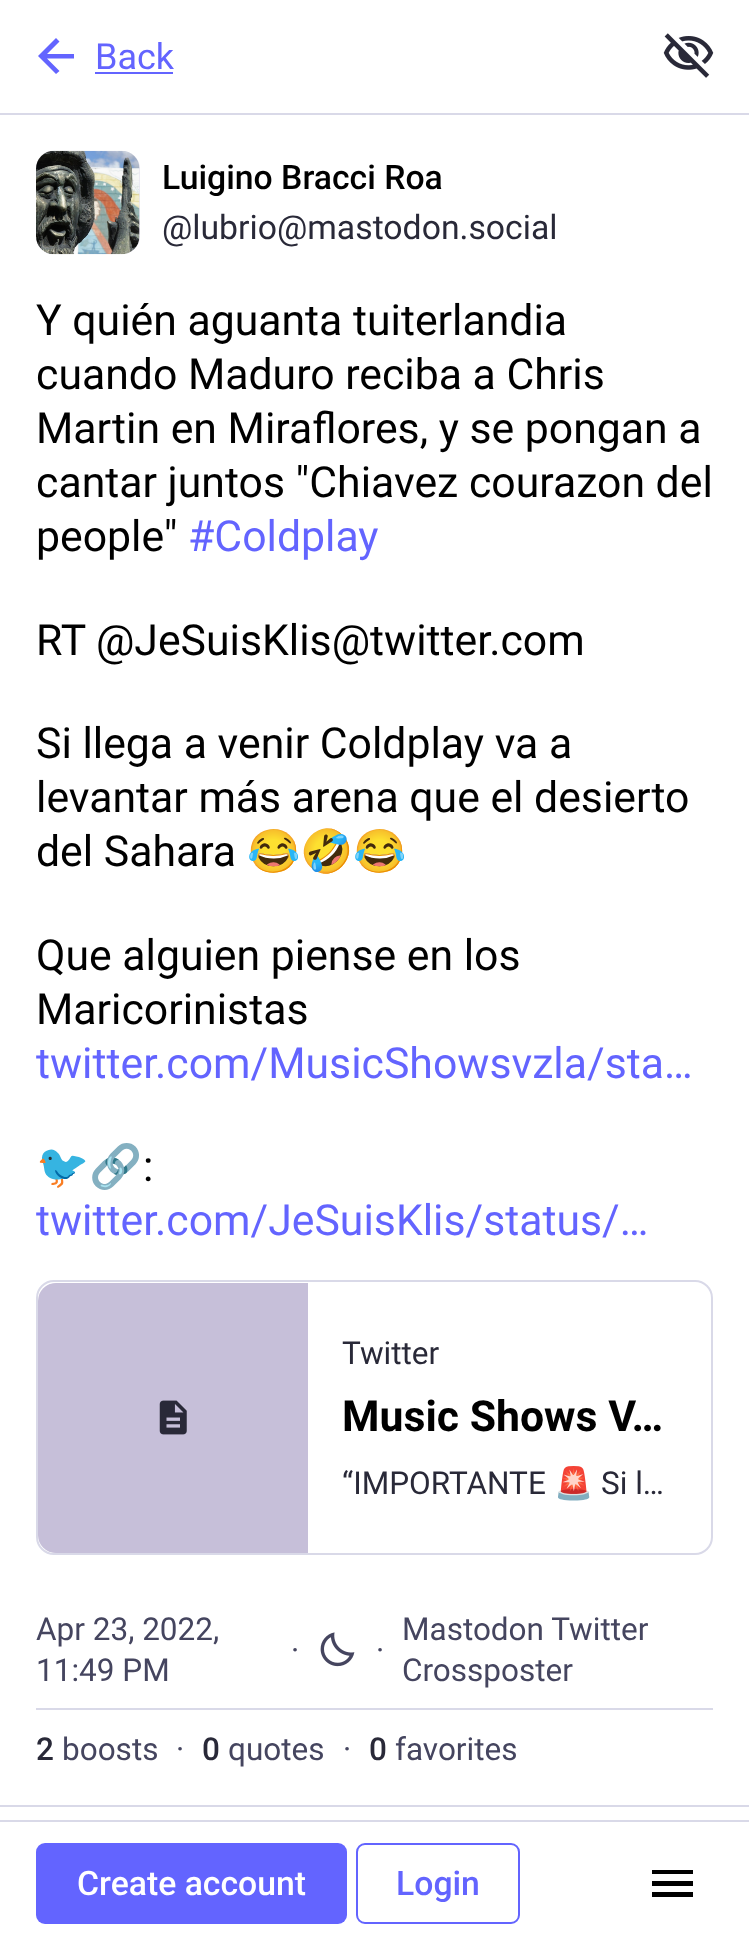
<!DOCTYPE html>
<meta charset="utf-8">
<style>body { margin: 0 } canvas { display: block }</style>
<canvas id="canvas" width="749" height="1942"></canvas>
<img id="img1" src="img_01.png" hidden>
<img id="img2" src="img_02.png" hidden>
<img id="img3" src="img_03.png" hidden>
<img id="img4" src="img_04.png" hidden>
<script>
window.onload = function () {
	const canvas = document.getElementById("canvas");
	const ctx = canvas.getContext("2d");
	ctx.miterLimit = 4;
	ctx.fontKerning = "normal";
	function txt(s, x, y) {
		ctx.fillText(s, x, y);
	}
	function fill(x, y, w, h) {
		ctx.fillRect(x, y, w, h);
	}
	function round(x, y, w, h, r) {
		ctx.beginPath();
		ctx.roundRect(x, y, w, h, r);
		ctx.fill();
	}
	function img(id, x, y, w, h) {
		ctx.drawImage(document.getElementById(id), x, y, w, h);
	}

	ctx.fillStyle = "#FFFFFF";
	fill(0, 0, 749, 1942);
	ctx.fillStyle = "#D9D9E8";
	fill(0, 113, 749, 2);
	ctx.fillStyle = "#6364FF";
	ctx.beginPath();
	ctx.moveTo(47, 58.5);
	ctx.lineTo(59.5, 71);
	ctx.lineTo(56, 74);
	ctx.lineTo(38, 56);
	ctx.lineTo(56, 38);
	ctx.lineTo(59.5, 41.5);
	ctx.lineTo(47, 54);
	ctx.lineTo(74, 54);
	ctx.lineTo(74, 58.5);
	ctx.closePath();
	ctx.fill();
	fill(95, 72, 78, 2);
	img("img1", 663, 33, 51, 45);
	ctx.fillStyle = "#E8E6F0";
	round(36, 151, 104, 103, 18);
	img("img2", 36, 150, 104, 105);
	ctx.beginPath();
	ctx.roundRect(37, 1281, 675, 273, 17);
	ctx.strokeStyle = "#D9D9E8";
	ctx.lineWidth = 2;
	ctx.stroke();
	ctx.save();
	ctx.beginPath();
	ctx.roundRect(38, 1283, 673, 270, 16);
	ctx.clip();
	ctx.fillStyle = "#C6BFD9";
	ctx.beginPath();
	ctx.roundRect(38, 1283, 270, 270, [18, 0, 0, 18]);
	ctx.fill();
	ctx.restore();
	img("img3", 159, 1400, 28, 35);
	ctx.fillStyle = "#D9D9E8";
	fill(36, 1708, 677, 2);
	img("img4", 320, 1632, 35, 35);
	fill(0, 1805, 749, 2);
	fill(0, 1820, 749, 2);
	ctx.fillStyle = "#6364FF";
	round(36, 1843, 311, 81, 9);
	ctx.beginPath();
	ctx.roundRect(357, 1844, 162, 79, 8);
	ctx.strokeStyle = "#6364FF";
	ctx.stroke();
	ctx.fillStyle = "#000000";
	ctx.beginPath();
	ctx.moveTo(652, 1897);
	ctx.lineTo(652, 1892);
	ctx.lineTo(693, 1892);
	ctx.lineTo(693, 1897);
	ctx.closePath();
	ctx.moveTo(652, 1886);
	ctx.lineTo(652, 1881);
	ctx.lineTo(693, 1881);
	ctx.lineTo(693, 1886);
	ctx.closePath();
	ctx.moveTo(652, 1874);
	ctx.lineTo(652, 1870);
	ctx.lineTo(693, 1870);
	ctx.lineTo(693, 1874);
	ctx.closePath();
	ctx.fill();
	ctx.font = "36px Roboto";
	ctx.fillStyle = "#6364FF";
	txt("Back", 95, 69);
	ctx.font = "500 33.75px Roboto";
	ctx.fillStyle = "#000000";
	txt("Luigino Bracci Roa", 162, 189);
	ctx.font = "33.75px Roboto";
	ctx.fillStyle = "#292938";
	txt("@lubrio@mastodon.social", 162, 239);
	ctx.font = "42.75px Roboto";
	ctx.fillStyle = "#000000";
	txt("Y quién aguanta tuiterlandia", 36, 335);
	txt("cuando Maduro reciba a Chris", 36, 389);
	txt("Martin en Miraflores, y se pongan a", 36, 443);
	txt("cantar juntos \"Chiavez courazon del", 36, 497);
	txt("people\"", 36, 551);
	ctx.fillStyle = "#6364FF";
	txt("#Coldplay", 188, 551);
	ctx.fillStyle = "#000000";
	txt("RT @JeSuisKlis@twitter.com", 36, 655);
	txt("Si llega a venir Coldplay va a", 36, 758);
	txt("levantar más arena que el desierto", 36, 812);
	txt("del Sahara", 36, 866);
	ctx.font = "42.75px Noto Color Emoji";
	txt("😂🤣😂", 247, 866);
	ctx.font = "42.75px Roboto";
	txt("Que alguien piense en los", 36, 970);
	txt("Maricorinistas", 36, 1024);
	ctx.fillStyle = "#6364FF";
	txt("twitter.com/MusicShowsvzla/sta…", 36, 1078);
	ctx.font = "42.75px Noto Color Emoji";
	ctx.fillStyle = "#000000";
	txt("🐦🔗", 36, 1181);
	ctx.font = "42.75px Roboto";
	txt(":", 143, 1181);
	ctx.fillStyle = "#6364FF";
	txt("twitter.com/JeSuisKlis/status/…", 36, 1235);
	ctx.font = "31.5px Roboto";
	ctx.fillStyle = "#292938";
	txt("Twitter", 342, 1364);
	ctx.font = "bold 42.75px Roboto";
	ctx.fillStyle = "#000000";
	txt("Music Shows V…", 342, 1431);
	ctx.font = "31.5px Roboto";
	ctx.fillStyle = "#292938";
	txt("“IMPORTANTE", 342, 1494);
	ctx.font = "31.5px Noto Color Emoji";
	txt("🚨", 554, 1494);
	ctx.font = "31.5px Roboto";
	txt("Si l…", 601, 1494);
	ctx.fillStyle = "#45455F";
	txt("Apr 23, 2022,", 36, 1640);
	txt("11:49 PM", 36, 1681);
	txt("·", 291, 1661);
	txt("·", 376, 1661);
	txt("Mastodon Twitter", 402, 1640);
	txt("Crossposter", 402, 1681);
	ctx.font = "500 31.5px Roboto";
	ctx.fillStyle = "#292938";
	txt("2", 36, 1760);
	ctx.font = "31.5px Roboto";
	ctx.fillStyle = "#45455F";
	txt("boosts", 62, 1760);
	txt("·", 176, 1760);
	ctx.font = "500 31.5px Roboto";
	ctx.fillStyle = "#292938";
	txt("0", 202, 1760);
	ctx.font = "31.5px Roboto";
	ctx.fillStyle = "#45455F";
	txt("quotes", 228, 1760);
	txt("·", 343, 1760);
	ctx.font = "500 31.5px Roboto";
	ctx.fillStyle = "#292938";
	txt("0", 369, 1760);
	ctx.font = "31.5px Roboto";
	ctx.fillStyle = "#45455F";
	txt("favorites", 395, 1760);
	ctx.font = "500 33.75px Roboto";
	ctx.fillStyle = "#FFFFFF";
	txt("Create account", 77, 1895);
	ctx.fillStyle = "#6364FF";
	txt("Login", 396, 1895);
};
</script>
